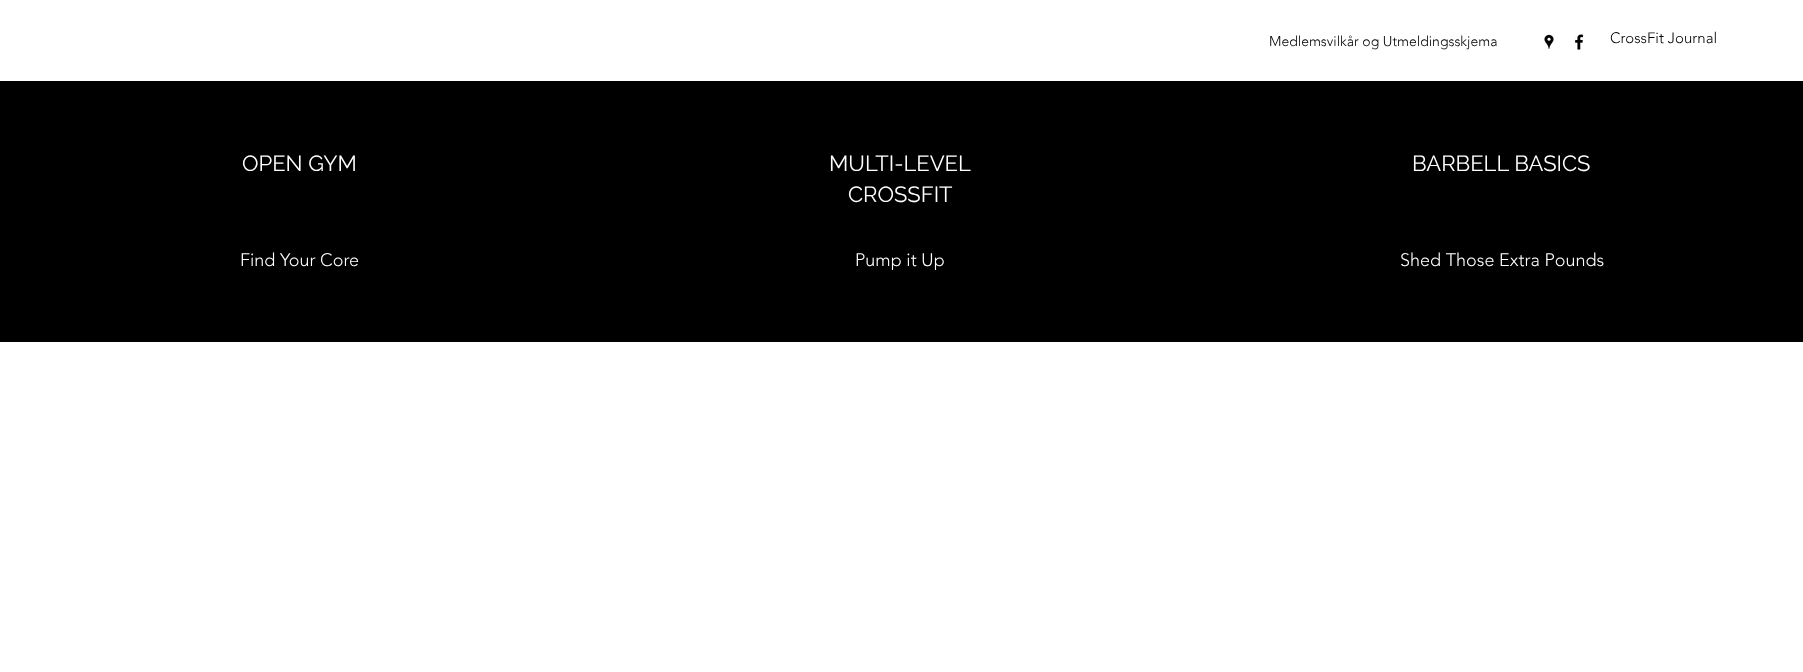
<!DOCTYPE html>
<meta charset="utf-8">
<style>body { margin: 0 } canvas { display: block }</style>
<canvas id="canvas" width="1803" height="672"></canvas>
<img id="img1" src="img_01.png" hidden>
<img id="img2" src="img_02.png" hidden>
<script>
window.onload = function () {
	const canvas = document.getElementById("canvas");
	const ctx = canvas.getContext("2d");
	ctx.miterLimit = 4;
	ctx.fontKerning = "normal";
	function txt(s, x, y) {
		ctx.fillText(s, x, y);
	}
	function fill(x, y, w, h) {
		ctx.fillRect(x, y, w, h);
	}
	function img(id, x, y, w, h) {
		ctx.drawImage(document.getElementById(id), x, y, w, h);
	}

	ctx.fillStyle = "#FFFFFF";
	fill(0, 0, 1803, 672);
	img("img1", 1544, 34, 10, 15);
	img("img2", 1575, 34, 9, 16);
	ctx.fillStyle = "#000000";
	fill(0, 81, 1803, 261);
	ctx.font = "300 14px 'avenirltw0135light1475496'";
	txt("Medlemsvilkår og Utmeldingsskjema", 1269, 46);
	ctx.font = "300 15px 'avenirltw0135light1475496'";
	txt("CrossFit Journal", 1610, 43);
	ctx.font = "22px Raleway";
	ctx.fillStyle = "#FFFFFF";
	txt("OPEN GYM", 242, 171);
	ctx.font = "300 18px 'avenirltw0135light1475496'";
	txt("Find Your Core", 240, 266);
	ctx.font = "22px Raleway";
	txt("MULTI-LEVEL", 829, 171);
	txt("CROSSFIT", 848, 202);
	ctx.font = "300 18px 'avenirltw0135light1475496'";
	txt("Pump it Up", 855, 266);
	ctx.font = "22px Raleway";
	txt("BARBELL BASICS", 1412, 171);
	ctx.font = "300 18px 'avenirltw0135light1475496'";
	txt("Shed Those Extra Pounds", 1400, 266);
};
</script>
